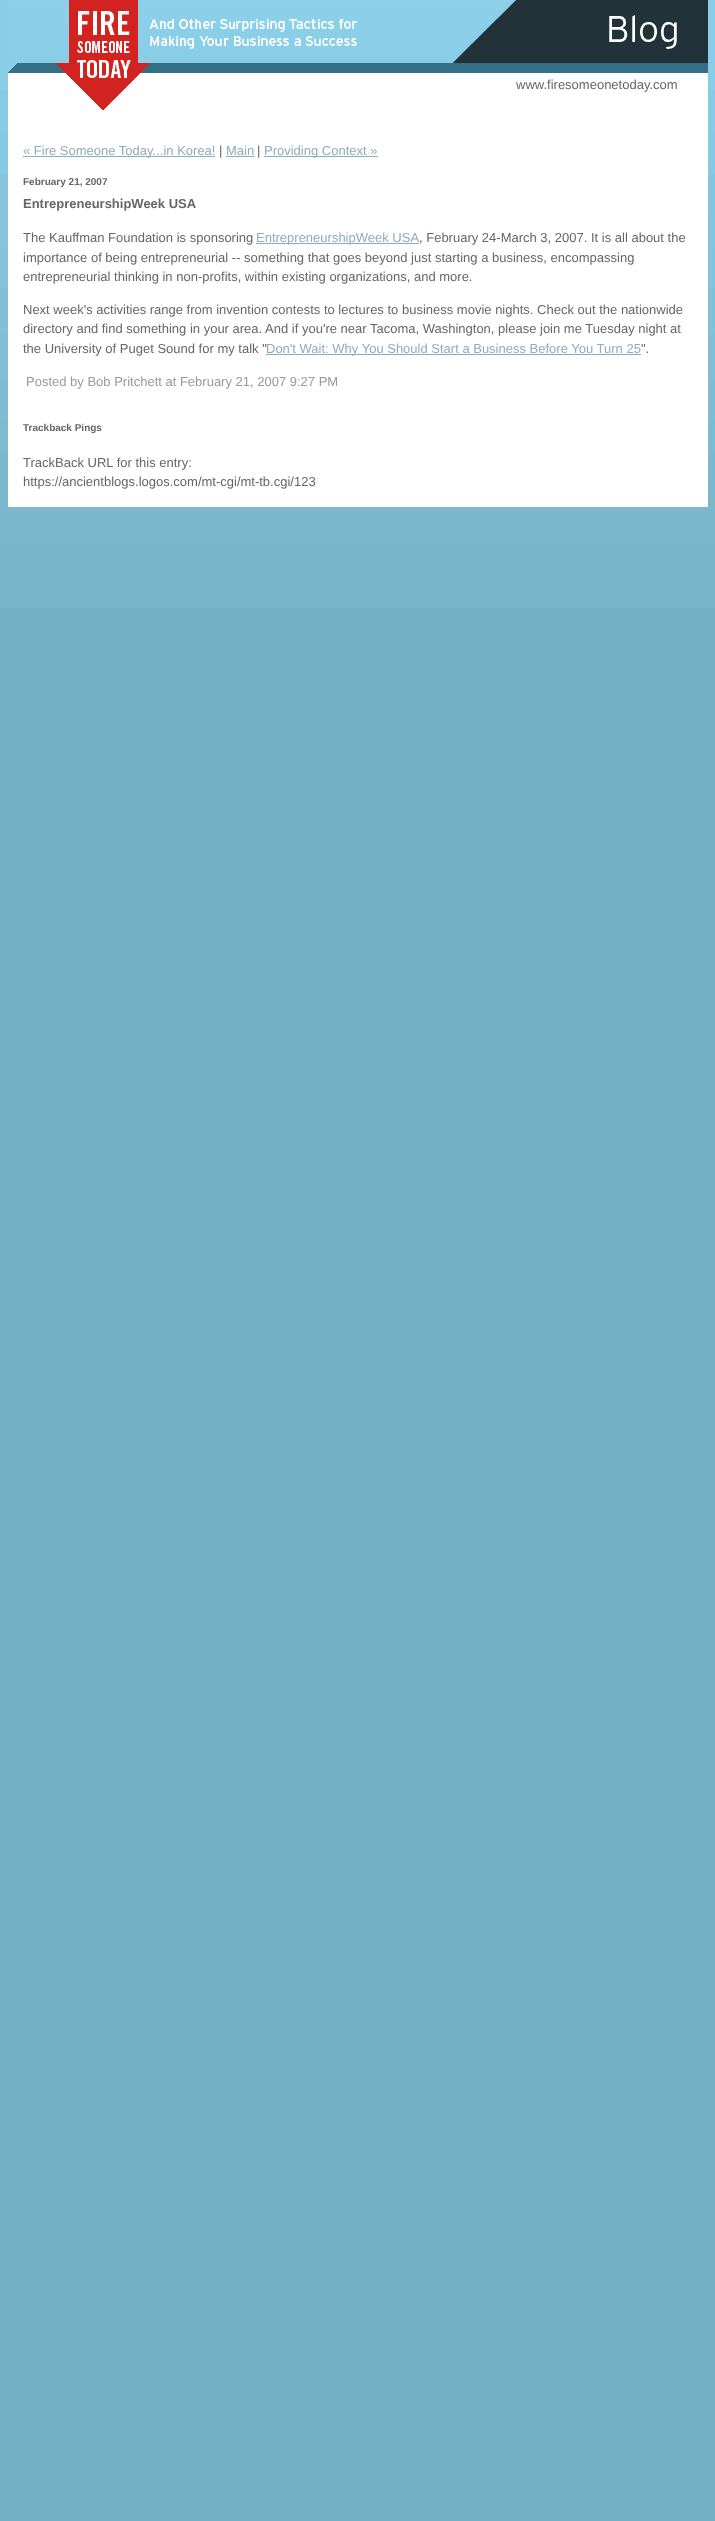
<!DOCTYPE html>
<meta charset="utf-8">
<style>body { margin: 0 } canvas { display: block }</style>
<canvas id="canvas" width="715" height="2521"></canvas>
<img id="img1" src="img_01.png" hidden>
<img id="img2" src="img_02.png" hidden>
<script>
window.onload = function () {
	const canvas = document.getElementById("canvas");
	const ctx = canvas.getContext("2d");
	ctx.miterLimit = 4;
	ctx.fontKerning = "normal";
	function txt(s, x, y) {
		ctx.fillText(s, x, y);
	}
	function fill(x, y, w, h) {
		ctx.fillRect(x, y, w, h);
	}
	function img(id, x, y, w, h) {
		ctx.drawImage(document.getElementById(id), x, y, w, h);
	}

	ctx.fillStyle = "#74AEC2";
	fill(0, 0, 715, 2521);
	img("img1", 0, 0, 715, 608);
	ctx.fillStyle = "#FFFFFF";
	fill(8, 73, 700, 434);
	img("img2", 8, 0, 700, 110);
	ctx.fillStyle = "#8FABBE";
	fill(23, 156, 192, 1);
	fill(226, 156, 28, 1);
	fill(264, 156, 114, 1);
	fill(256, 243, 163, 1);
	fill(266, 354, 375, 1);
	ctx.font = "13px Liberation Sans";
	ctx.fillStyle = "#666666";
	txt("www.firesomeonetoday.com", 516, 89);
	ctx.fillStyle = "#8FABBE";
	txt("« Fire Someone Today...in Korea!", 23, 155);
	ctx.fillStyle = "#666666";
	txt("|", 219, 155);
	ctx.fillStyle = "#8FABBE";
	txt("Main", 226, 155);
	ctx.fillStyle = "#666666";
	txt("|", 257, 155);
	ctx.fillStyle = "#8FABBE";
	txt("Providing Context »", 264, 155);
	ctx.font = "bold 10px Liberation Sans";
	ctx.fillStyle = "#666666";
	txt("February 21, 2007", 23, 185);
	ctx.font = "bold 13px Liberation Sans";
	txt("EntrepreneurshipWeek USA", 23, 208);
	ctx.font = "13px Liberation Sans";
	txt("The Kauffman Foundation is sponsoring", 23, 242);
	ctx.fillStyle = "#8FABBE";
	txt("EntrepreneurshipWeek USA", 256, 242);
	ctx.fillStyle = "#666666";
	txt(", February 24-March 3, 2007. It is all about the", 419, 242);
	txt("importance of being entrepreneurial -- something that goes beyond just starting a business, encompassing", 23, 262);
	txt("entrepreneurial thinking in non-profits, within existing organizations, and more.", 23, 281);
	txt("Next week's activities range from invention contests to lectures to business movie nights. Check out the nationwide", 23, 314);
	txt("directory and find something in your area. And if you're near Tacoma, Washington, please join me Tuesday night at", 23, 333);
	txt("the University of Puget Sound for my talk \"", 23, 353);
	ctx.fillStyle = "#8FABBE";
	txt("Don't Wait: Why You Should Start a Business Before You Turn 25", 266, 353);
	ctx.fillStyle = "#666666";
	txt("\".", 641, 353);
	ctx.fillStyle = "#999999";
	txt("Posted by Bob Pritchett at February 21, 2007 9:27 PM", 26, 386);
	ctx.font = "bold 10px Liberation Sans";
	ctx.fillStyle = "#666666";
	txt("Trackback Pings", 23, 431);
	ctx.font = "13px Liberation Sans";
	txt("TrackBack URL for this entry:", 23, 467);
	txt("https://ancientblogs.logos.com/mt-cgi/mt-tb.cgi/123", 23, 486);
};
</script>
